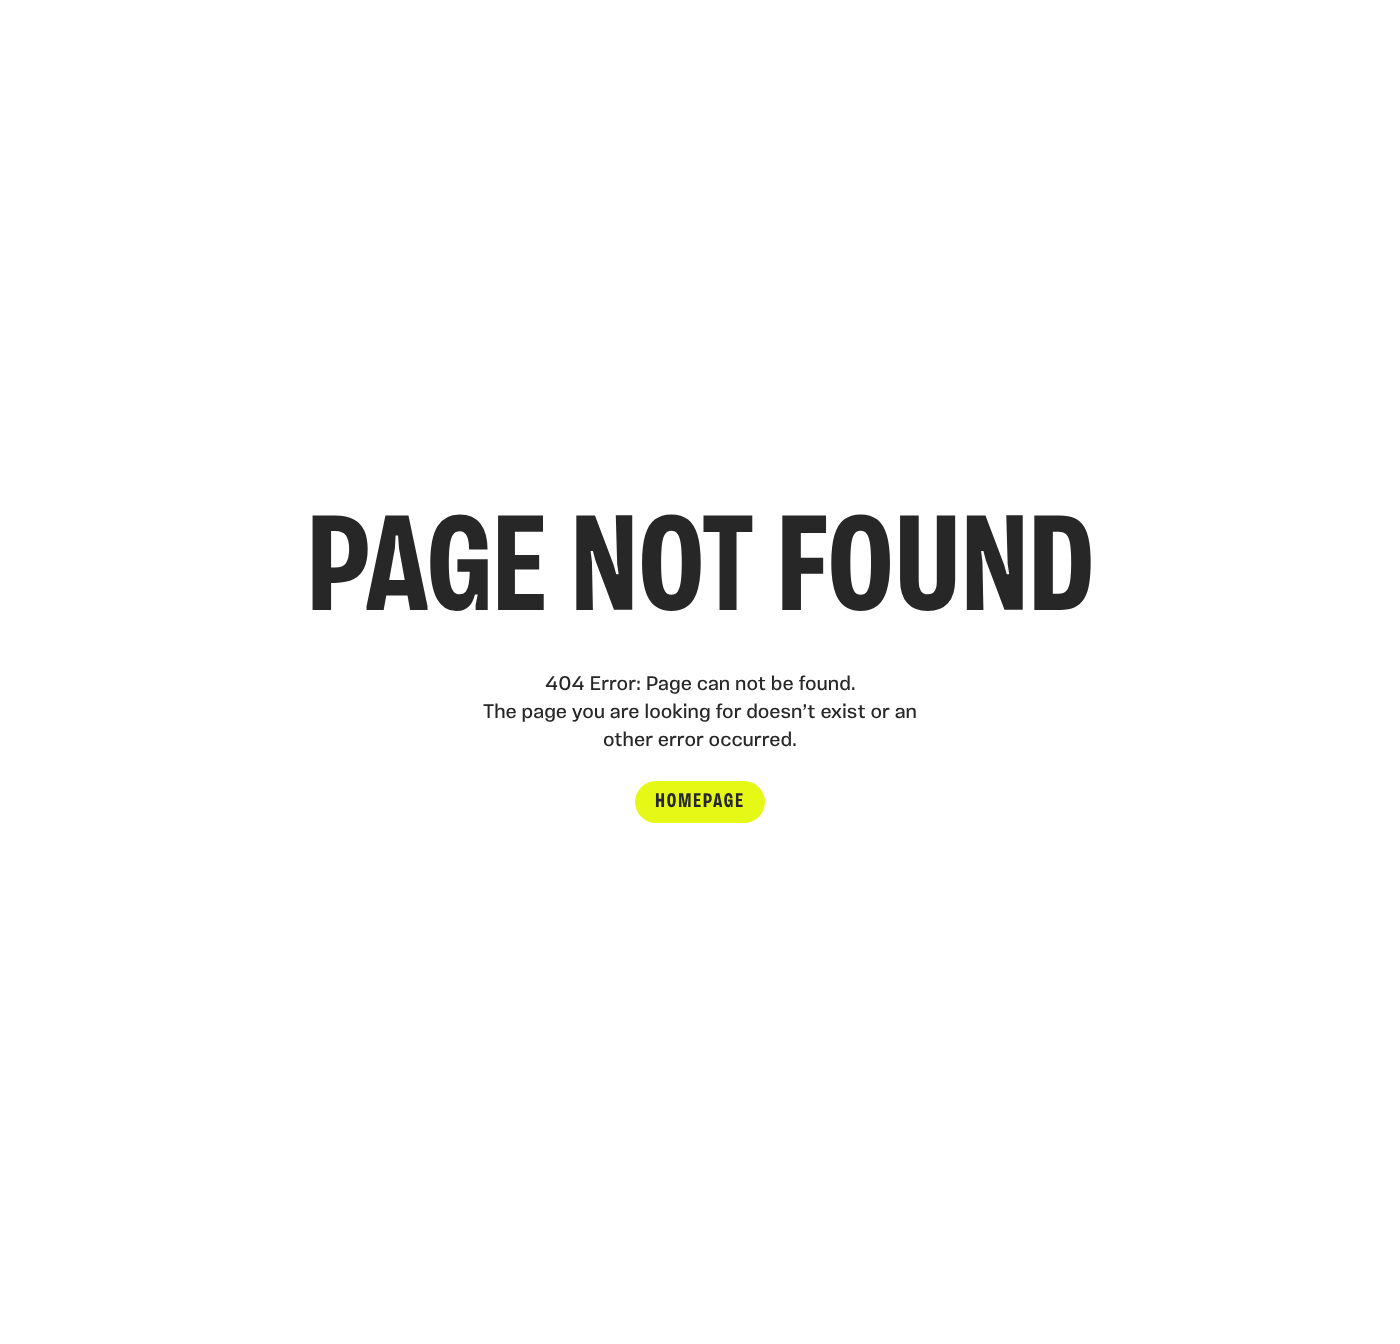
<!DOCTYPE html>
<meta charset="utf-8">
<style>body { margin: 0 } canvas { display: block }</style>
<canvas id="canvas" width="1400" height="1344"></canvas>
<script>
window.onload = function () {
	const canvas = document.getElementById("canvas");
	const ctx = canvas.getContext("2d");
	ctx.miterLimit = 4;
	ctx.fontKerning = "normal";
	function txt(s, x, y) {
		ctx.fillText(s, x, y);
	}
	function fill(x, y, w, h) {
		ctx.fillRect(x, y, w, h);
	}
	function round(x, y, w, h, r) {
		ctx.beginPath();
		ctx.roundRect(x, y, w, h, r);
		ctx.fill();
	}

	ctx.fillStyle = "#FFFFFF";
	fill(0, 0, 1400, 1344);
	ctx.fillStyle = "#E6F916";
	round(635, 781, 130, 42, 21);
	ctx.letterSpacing = "-1.4px";
	ctx.font = "bold 137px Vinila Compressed";
	ctx.fillStyle = "#272727";
	txt("PAGE NOT FOUND", 306, 610);
	ctx.letterSpacing = "0px";
	ctx.font = "20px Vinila";
	txt("404 Error: Page can not be found.", 545, 690);
	txt("The page you are looking for doesn’t exist or an", 483, 718);
	txt("other error occurred.", 603, 746);
	ctx.letterSpacing = "1.5px";
	ctx.font = "bold 20px Vinila Compressed";
	txt("HOMEPAGE", 655, 807);
};
</script>
